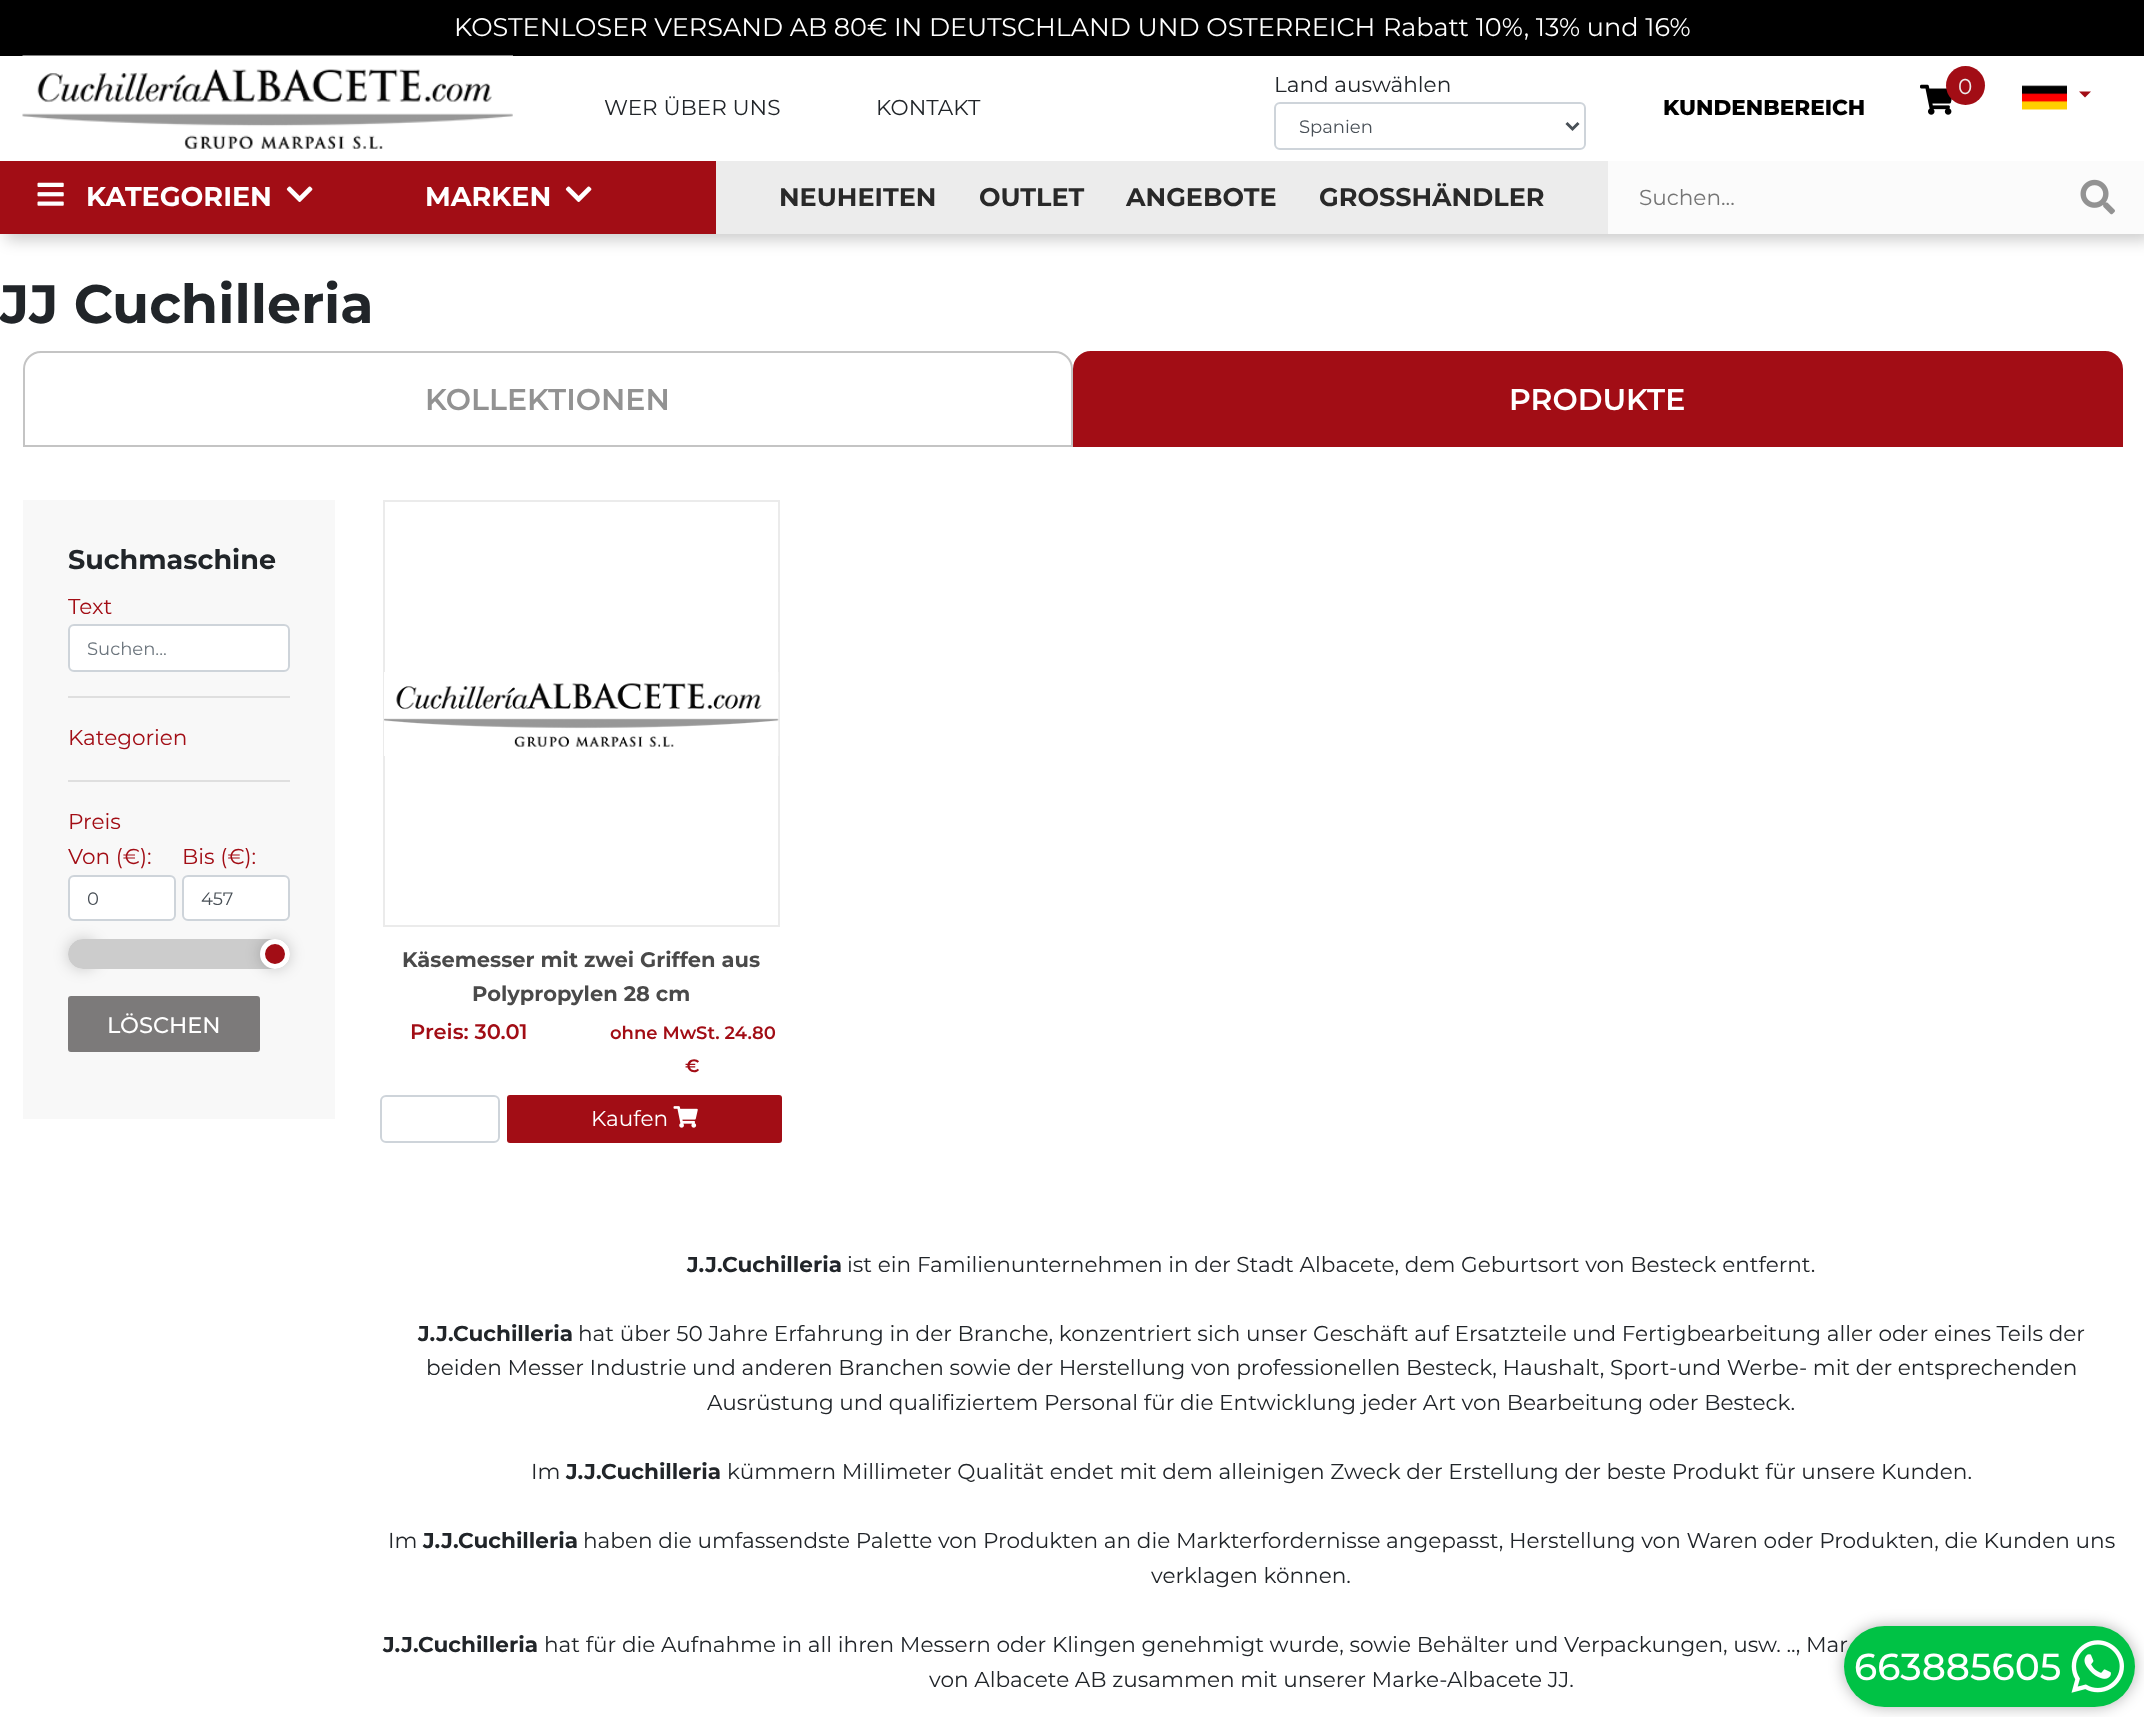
<!DOCTYPE html>
<meta charset="utf-8">
<style>body { margin: 0 } canvas { display: block }</style>
<canvas id="canvas" width="2144" height="1717"></canvas>
<img id="img1" src="img_01.png" hidden>
<img id="img2" src="img_02.png" hidden>
<img id="img3" src="img_03.png" hidden>
<img id="img4" src="img_04.png" hidden>
<img id="img5" src="img_05.png" hidden>
<img id="img6" src="img_06.png" hidden>
<img id="img7" src="img_07.png" hidden>
<img id="img8" src="img_08.png" hidden>
<img id="img9" src="img_09.png" hidden>
<script>
window.onload = function () {
	const canvas = document.getElementById("canvas");
	const ctx = canvas.getContext("2d");
	ctx.miterLimit = 4;
	ctx.fontKerning = "normal";
	function txt(s, x, y) {
		ctx.fillText(s, x, y);
	}
	function fill(x, y, w, h) {
		ctx.fillRect(x, y, w, h);
	}
	function round(x, y, w, h, r) {
		ctx.beginPath();
		ctx.roundRect(x, y, w, h, r);
		ctx.fill();
	}
	function img(id, x, y, w, h) {
		ctx.drawImage(document.getElementById(id), x, y, w, h);
	}

	ctx.fillStyle = "#FFFFFF";
	fill(0, 0, 2144, 1717);
	ctx.fillStyle = "rgba(0, 0, 0, 0.2)";
	ctx.filter = "blur(7.5px)";
	ctx.beginPath();
	ctx.rect(6, 6, 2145, 234);
	ctx.fill();
	ctx.filter = "none";
	ctx.fillStyle = "#FFFFFF";
	fill(0, 56, 2144, 105);
	ctx.fillStyle = "#000000";
	fill(0, 0, 2144, 56);
	img("img1", 22, 55, 491, 94);
	ctx.beginPath();
	ctx.roundRect(1275, 103, 310, 46, 5);
	ctx.strokeStyle = "#CED4DA";
	ctx.lineWidth = 2;
	ctx.stroke();
	ctx.beginPath();
	ctx.moveTo(1566.5, 123);
	ctx.lineTo(1572.5, 129);
	ctx.lineTo(1578.5, 123);
	ctx.strokeStyle = "#495057";
	ctx.lineWidth = 3;
	ctx.stroke();
	img("img2", 1920, 84, 32, 31);
	ctx.fillStyle = "#A20D15";
	ctx.beginPath();
	ctx.arc(1965.5, 85.5, 19.5, 0, Math.PI * 2);
	ctx.fill();
	img("img3", 2022, 85, 45, 25);
	ctx.beginPath();
	ctx.moveTo(2079, 91.5);
	ctx.lineTo(2091, 91.5);
	ctx.lineTo(2085, 97.5);
	ctx.closePath();
	ctx.fill();
	ctx.fillStyle = "#ECECEC";
	fill(716, 161, 892, 73);
	ctx.fillStyle = "#A20D15";
	fill(0, 161, 716, 73);
	img("img4", 37, 182, 27, 24);
	img("img5", 286, 186, 27, 16);
	img("img5", 565, 186, 27, 16);
	ctx.fillStyle = "#FBFBFB";
	fill(1608, 161, 536, 73);
	img("img6", 2080, 179, 35, 36);
	ctx.beginPath();
	ctx.roundRect(24, 352, 1048, 94, [17, 17, 0, 0]);
	ctx.strokeStyle = "#C4C4C4";
	ctx.lineWidth = 2;
	ctx.stroke();
	ctx.fillStyle = "#A20D15";
	ctx.beginPath();
	ctx.roundRect(1074, 352, 1048, 94, [17, 17, 0, 0]);
	ctx.fill();
	ctx.strokeStyle = "#A20D15";
	ctx.stroke();
	ctx.fillStyle = "#F8F8F8";
	fill(23, 500, 312, 619);
	ctx.fillStyle = "#FFFFFF";
	ctx.beginPath();
	ctx.roundRect(69, 625, 220, 46, 5);
	ctx.fill();
	ctx.strokeStyle = "#CED4DA";
	ctx.stroke();
	ctx.fillStyle = "#DFDFDF";
	fill(68, 696, 222, 2);
	fill(68, 780, 222, 2);
	ctx.fillStyle = "#FFFFFF";
	ctx.beginPath();
	ctx.roundRect(69, 876, 106, 44, 5);
	ctx.fill();
	ctx.stroke();
	ctx.beginPath();
	ctx.roundRect(183, 876, 106, 44, 5);
	ctx.fill();
	ctx.stroke();
	ctx.fillStyle = "rgba(0, 0, 0, 0.2)";
	ctx.filter = "blur(7.5px)";
	ctx.beginPath();
	ctx.roundRect(68, 939, 30, 30, 15);
	ctx.fill();
	ctx.filter = "none";
	ctx.beginPath();
	ctx.arc(83, 954, 12.5, 0, Math.PI * 2);
	ctx.strokeStyle = "#FFFFFF";
	ctx.lineWidth = 5;
	ctx.stroke();
	ctx.fillStyle = "#CCCCCC";
	round(68, 939, 222, 30, 15);
	ctx.fillStyle = "rgba(0, 0, 0, 0.2)";
	ctx.filter = "blur(7.5px)";
	ctx.beginPath();
	ctx.roundRect(260, 939, 30, 30, 15);
	ctx.fill();
	ctx.filter = "none";
	ctx.fillStyle = "#A20D15";
	ctx.beginPath();
	ctx.arc(275, 954, 12.5, 0, Math.PI * 2);
	ctx.fill();
	ctx.stroke();
	ctx.fillStyle = "#7C7A7A";
	ctx.beginPath();
	ctx.roundRect(69, 997, 190, 54, 2);
	ctx.fill();
	ctx.strokeStyle = "#7C7A7A";
	ctx.lineWidth = 2;
	ctx.stroke();
	ctx.strokeStyle = "#EBEBEB";
	ctx.strokeRect(384, 501, 395, 425);
	img("img7", 384, 672, 395, 84);
	ctx.beginPath();
	ctx.roundRect(381, 1096, 118, 46, 5);
	ctx.strokeStyle = "#CED4DA";
	ctx.stroke();
	ctx.fillStyle = "#A20D15";
	round(507, 1095, 275, 48, 3);
	img("img8", 673, 1106, 25, 22);
	ctx.fillStyle = "rgba(0, 0, 0, 0.3)";
	ctx.filter = "blur(7.5px)";
	ctx.beginPath();
	ctx.roundRect(1844, 1626, 291, 81, 40.5);
	ctx.fill();
	ctx.filter = "none";
	ctx.font = "25.5px Montserrat";
	ctx.fillStyle = "#FFFFFF";
	txt("KOSTENLOSER VERSAND AB 80€ IN DEUTSCHLAND UND OSTERREICH", 454, 36);
	txt("Rabatt 10%, 13% und 16%", 1383, 36);
	ctx.font = "21.6px Montserrat";
	ctx.fillStyle = "#212529";
	txt("WER ÜBER UNS", 604, 115);
	txt("KONTAKT", 876, 115);
	txt("Land auswählen", 1274, 92);
	ctx.font = "18px Montserrat";
	ctx.fillStyle = "#495057";
	txt("Spanien", 1299, 133);
	ctx.font = "800 21.6px Montserrat";
	ctx.fillStyle = "#000000";
	txt("KUNDENBEREICH", 1663, 115);
	ctx.font = "21.6px Montserrat";
	ctx.fillStyle = "#ECECEC";
	txt("0", 1958, 94);
	ctx.font = "bold 27px Montserrat";
	ctx.fillStyle = "#FFFFFF";
	txt("KATEGORIEN", 86, 206);
	txt("MARKEN", 425, 206);
	ctx.font = "bold 25.5px Montserrat";
	ctx.fillStyle = "#292929";
	txt("NEUHEITEN", 779, 206);
	txt("OUTLET", 979, 206);
	txt("ANGEBOTE", 1126, 206);
	txt("GROSSHÄNDLER", 1319, 206);
	ctx.font = "21.6px Montserrat";
	ctx.fillStyle = "#757575";
	txt("Suchen...", 1639, 205);
	ctx.font = "bold 54px Montserrat";
	ctx.fillStyle = "#212529";
	txt("JJ Cuchilleria", 0, 323);
	ctx.font = "600 30px Montserrat";
	ctx.fillStyle = "#929292";
	txt("KOLLEKTIONEN", 425, 410);
	ctx.fillStyle = "#FFFFFF";
	txt("PRODUKTE", 1509, 410);
	ctx.font = "bold 27px Montserrat";
	ctx.fillStyle = "#212529";
	txt("Suchmaschine", 68, 569);
	ctx.font = "21.6px Montserrat";
	ctx.fillStyle = "#A20D15";
	txt("Text", 68, 614);
	ctx.font = "18px Montserrat";
	ctx.fillStyle = "#6C757D";
	txt("Suchen...", 87, 655);
	ctx.font = "21.6px Montserrat";
	ctx.fillStyle = "#A20D15";
	txt("Kategorien", 68, 745);
	txt("Preis", 68, 829);
	txt("Von (€):", 68, 864);
	ctx.font = "18px Montserrat";
	ctx.fillStyle = "#495057";
	txt("0", 87, 905);
	ctx.font = "21.6px Montserrat";
	ctx.fillStyle = "#A20D15";
	txt("Bis (€):", 182, 864);
	ctx.font = "18px Montserrat";
	ctx.fillStyle = "#495057";
	txt("457", 201, 905);
	ctx.font = "500 22.5px Montserrat";
	ctx.fillStyle = "#FFFFFF";
	txt("LÖSCHEN", 107, 1033);
	ctx.font = "bold 21px Montserrat";
	ctx.fillStyle = "#4A4A4A";
	txt("Käsemesser mit zwei Griffen aus", 402, 967);
	txt("Polypropylen 28 cm", 472, 1001);
	ctx.font = "600 21px Montserrat";
	ctx.fillStyle = "#A20D15";
	txt("Preis: 30.01", 410, 1039);
	ctx.font = "600 18px Montserrat";
	txt("ohne MwSt. 24.80", 610, 1039);
	txt("€", 685, 1072);
	ctx.font = "21.6px Montserrat";
	ctx.fillStyle = "#FFFFFF";
	txt("Kaufen", 591, 1126);
	ctx.font = "bold 21.6px Montserrat";
	ctx.fillStyle = "#212529";
	txt("J.J.Cuchilleria", 687, 1272);
	ctx.font = "21.6px Montserrat";
	txt("ist ein Familienunternehmen in der Stadt Albacete, dem Geburtsort von Besteck entfernt.", 847, 1272);
	ctx.font = "bold 21.6px Montserrat";
	txt("J.J.Cuchilleria", 418, 1341);
	ctx.font = "21.6px Montserrat";
	txt("hat über 50 Jahre Erfahrung in der Branche, konzentriert sich unser Geschäft auf Ersatzteile und Fertigbearbeitung aller oder eines Teils der", 578, 1341);
	txt("beiden Messer Industrie und anderen Branchen sowie der Herstellung von professionellen Besteck, Haushalt, Sport-und Werbe- mit der entsprechenden", 426, 1375);
	txt("Ausrüstung und qualifiziertem Personal für die Entwicklung jeder Art von Bearbeitung oder Besteck.", 707, 1410);
	txt("Im", 531, 1479);
	ctx.font = "bold 21.6px Montserrat";
	txt("J.J.Cuchilleria", 566, 1479);
	ctx.font = "21.6px Montserrat";
	txt("kümmern Millimeter Qualität endet mit dem alleinigen Zweck der Erstellung der beste Produkt für unsere Kunden.", 727, 1479);
	txt("Im", 388, 1548);
	ctx.font = "bold 21.6px Montserrat";
	txt("J.J.Cuchilleria", 423, 1548);
	ctx.font = "21.6px Montserrat";
	txt("haben die umfassendste Palette von Produkten an die Markterfordernisse angepasst, Herstellung von Waren oder Produkten, die Kunden uns", 583, 1548);
	txt("verklagen können.", 1151, 1583);
	ctx.font = "bold 21.6px Montserrat";
	txt("J.J.Cuchilleria", 383, 1652);
	ctx.font = "21.6px Montserrat";
	txt("hat für die Aufnahme in all ihren Messern oder Klingen genehmigt wurde, sowie Behälter und Verpackungen, usw. .., Mar", 544, 1652);
	txt("von Albacete AB zusammen mit unserer Marke-Albacete JJ.", 929, 1687);
	ctx.fillStyle = "#00C245";
	round(1844, 1626, 291, 81, 40.5);
	ctx.font = "500 37.5px Montserrat";
	ctx.fillStyle = "#FFFFFF";
	txt("663885605", 1854, 1680);
	img("img9", 2071, 1640, 53, 53);
};
</script>
